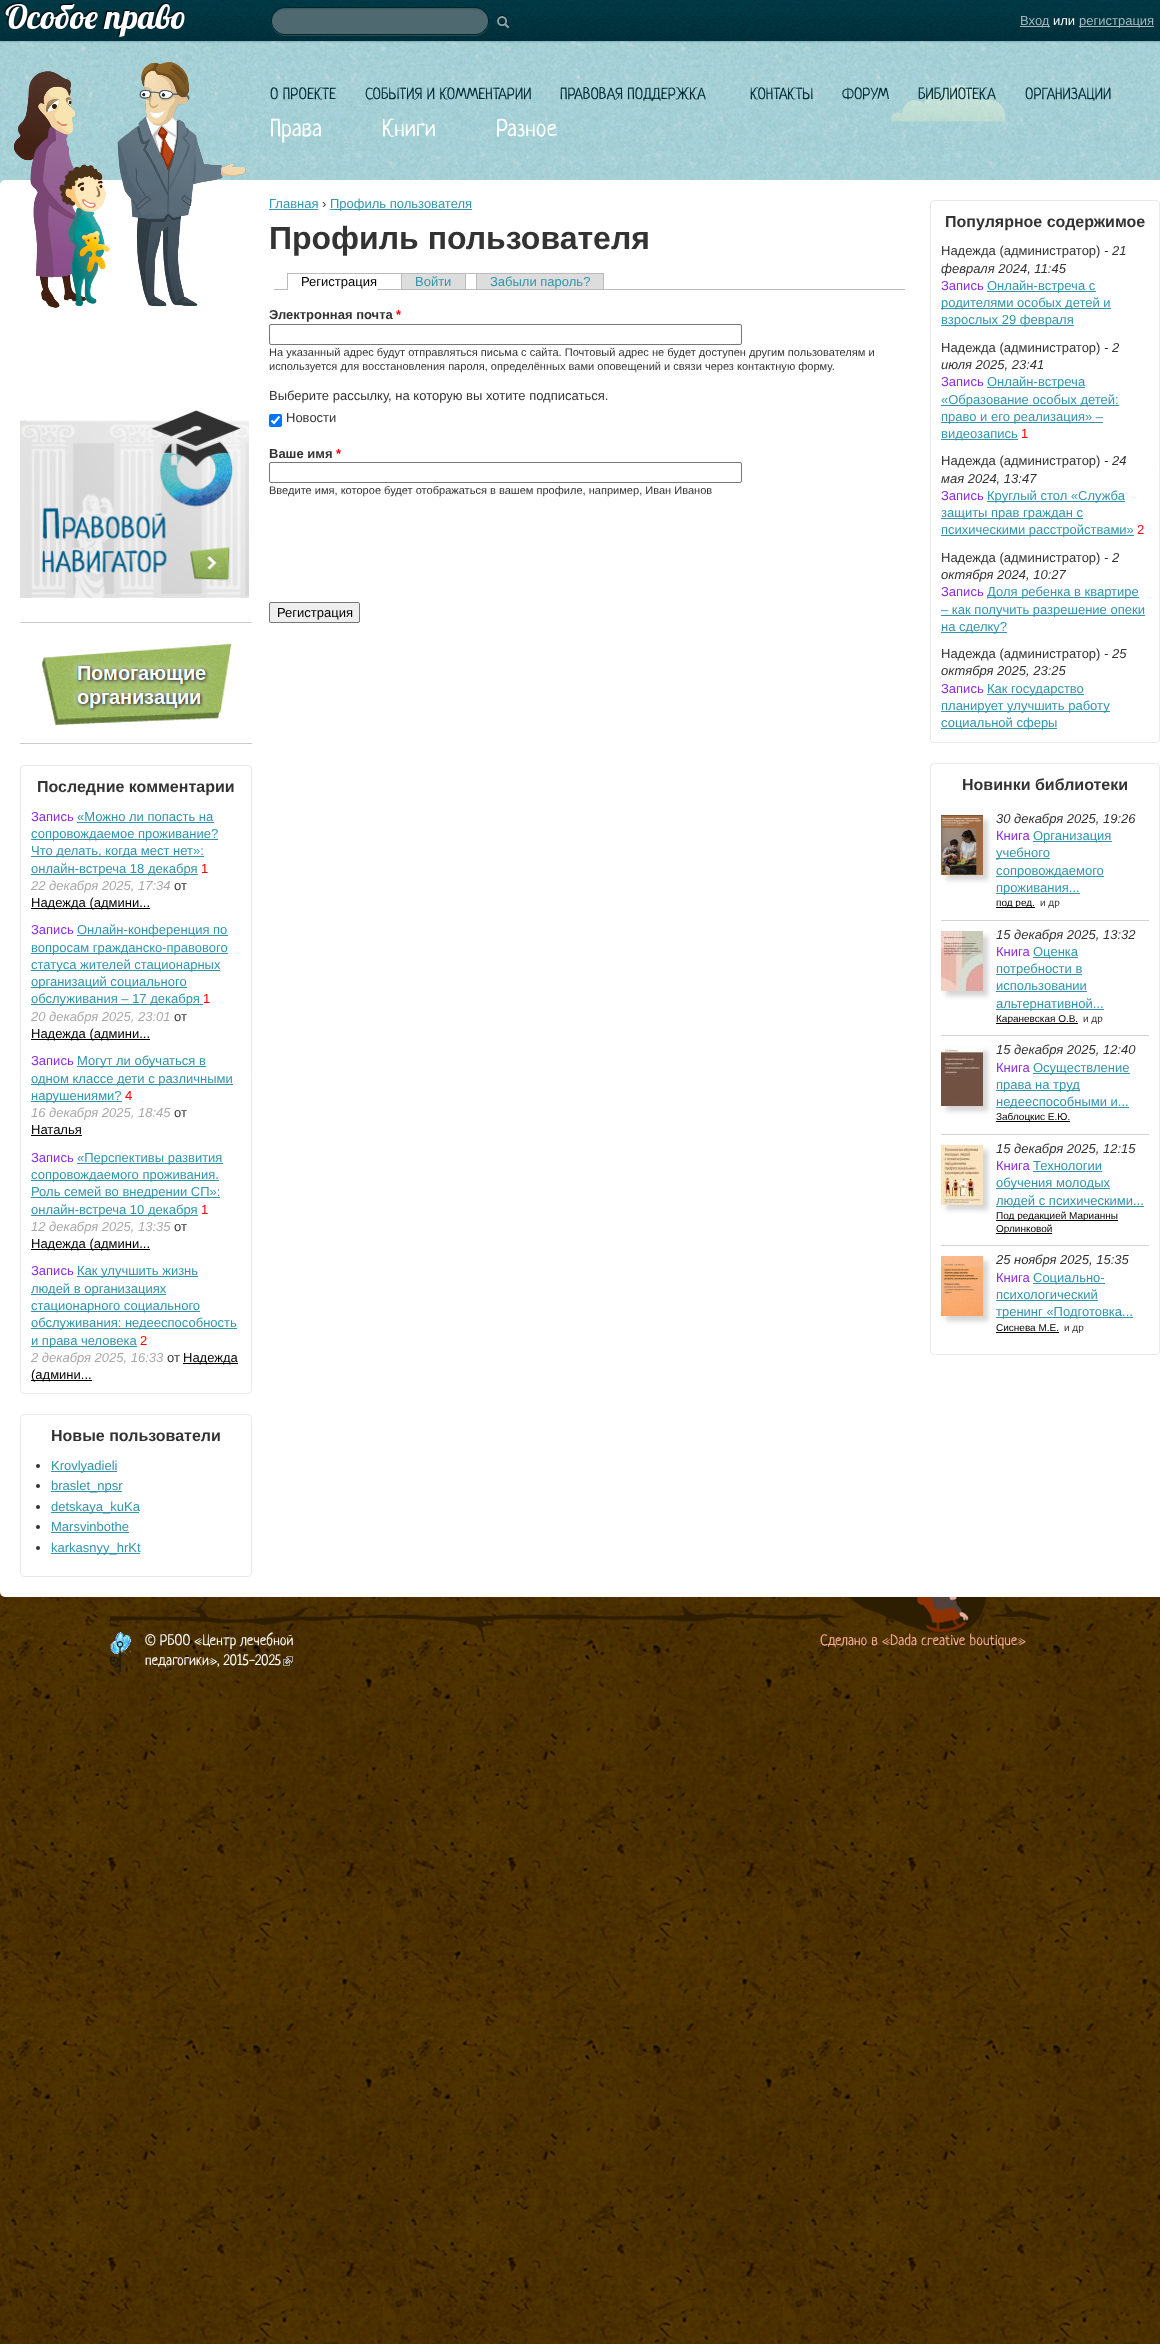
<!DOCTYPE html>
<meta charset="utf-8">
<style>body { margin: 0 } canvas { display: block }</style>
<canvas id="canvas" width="1160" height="2344"></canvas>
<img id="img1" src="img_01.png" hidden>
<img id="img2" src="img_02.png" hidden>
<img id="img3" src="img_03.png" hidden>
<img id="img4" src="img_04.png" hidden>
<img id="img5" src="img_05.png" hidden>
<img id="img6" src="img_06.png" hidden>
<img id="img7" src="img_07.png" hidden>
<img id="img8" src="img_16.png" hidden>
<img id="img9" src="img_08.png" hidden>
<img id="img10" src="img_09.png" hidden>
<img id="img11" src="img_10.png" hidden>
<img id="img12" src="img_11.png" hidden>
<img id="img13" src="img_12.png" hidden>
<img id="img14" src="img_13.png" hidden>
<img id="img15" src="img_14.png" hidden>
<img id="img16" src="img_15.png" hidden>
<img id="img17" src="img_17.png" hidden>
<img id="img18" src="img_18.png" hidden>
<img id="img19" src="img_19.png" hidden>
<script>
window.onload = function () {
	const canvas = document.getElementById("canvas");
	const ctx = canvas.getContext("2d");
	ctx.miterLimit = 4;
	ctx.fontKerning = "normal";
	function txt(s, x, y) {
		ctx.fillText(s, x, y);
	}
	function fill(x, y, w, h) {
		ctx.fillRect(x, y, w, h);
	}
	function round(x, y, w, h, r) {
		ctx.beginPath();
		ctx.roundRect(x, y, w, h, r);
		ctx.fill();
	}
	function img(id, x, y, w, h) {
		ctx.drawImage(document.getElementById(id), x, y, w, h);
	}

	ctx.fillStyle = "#FFFFFF";
	fill(0, 0, 1160, 2344);
	img("img1", 0, 1597, 1160, 747);
	img("img2", 0, 41, 1160, 144);
	img("img3", 890, 85, 116, 37);
	img("img4", 0, 0, 1160, 43);
	img("img5", 3, 2, 182, 36);
	img("img6", 14, 62, 232, 118);
	img("img7", 271, 7, 239, 29);
	ctx.fillStyle = "#A3B9BF";
	fill(1020, 26, 30, 1);
	fill(1079, 26, 75, 1);
	img("img8", 0, 1592, 5, 5);
	ctx.fillStyle = "#FFFFFF";
	round(0, 180, 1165, 1417, 5);
	img("img9", 20, 410, 229, 188);
	ctx.fillStyle = "#CCCCCC";
	fill(20, 622, 232, 1);
	img("img10", 42, 644, 190, 81);
	fill(20, 743, 232, 1);
	ctx.beginPath();
	ctx.roundRect(20.5, 765.5, 231, 628, 3.5);
	ctx.strokeStyle = "#E8E9EB";
	ctx.stroke();
	ctx.fillStyle = "#3195AB";
	fill(77, 822, 137, 1);
	fill(31, 839, 187, 1);
	fill(31, 856, 173, 1);
	fill(31, 874, 167, 1);
	ctx.fillStyle = "#000000";
	fill(31, 908, 119, 1);
	ctx.fillStyle = "#3195AB";
	fill(77, 935, 151, 1);
	fill(31, 953, 197, 1);
	fill(31, 970, 189, 1);
	fill(31, 987, 156, 1);
	fill(31, 1004, 172, 1);
	ctx.fillStyle = "#000000";
	fill(31, 1039, 119, 1);
	ctx.fillStyle = "#3195AB";
	fill(77, 1066, 129, 1);
	fill(31, 1084, 202, 1);
	fill(31, 1101, 91, 1);
	ctx.fillStyle = "#000000";
	fill(31, 1135, 51, 1);
	ctx.fillStyle = "#3195AB";
	fill(77, 1163, 146, 1);
	fill(31, 1180, 188, 1);
	fill(31, 1197, 189, 1);
	fill(31, 1215, 167, 1);
	ctx.fillStyle = "#000000";
	fill(31, 1249, 119, 1);
	ctx.fillStyle = "#3195AB";
	fill(77, 1276, 121, 1);
	fill(31, 1294, 135, 1);
	fill(31, 1311, 169, 1);
	fill(31, 1328, 206, 1);
	fill(31, 1346, 106, 1);
	ctx.fillStyle = "#000000";
	fill(183, 1363, 55, 1);
	fill(31, 1380, 61, 1);
	ctx.beginPath();
	ctx.roundRect(20.5, 1414.5, 231, 162, 3.5);
	ctx.stroke();
	ctx.fillStyle = "#333333";
	ctx.beginPath();
	ctx.arc(38, 1466, 2, 0, Math.PI * 2);
	ctx.fill();
	ctx.fillStyle = "#3195AB";
	fill(51, 1471, 66, 1);
	ctx.fillStyle = "#333333";
	ctx.beginPath();
	ctx.arc(38, 1486, 2, 0, Math.PI * 2);
	ctx.fill();
	ctx.fillStyle = "#3195AB";
	fill(51, 1491, 71, 1);
	ctx.fillStyle = "#333333";
	ctx.beginPath();
	ctx.arc(38, 1507, 2, 0, Math.PI * 2);
	ctx.fill();
	ctx.fillStyle = "#3195AB";
	fill(51, 1512, 88, 1);
	ctx.fillStyle = "#333333";
	ctx.beginPath();
	ctx.arc(38, 1527, 2, 0, Math.PI * 2);
	ctx.fill();
	ctx.fillStyle = "#3195AB";
	fill(51, 1532, 78, 1);
	ctx.fillStyle = "#333333";
	ctx.beginPath();
	ctx.arc(38, 1548, 2, 0, Math.PI * 2);
	ctx.fill();
	ctx.fillStyle = "#3195AB";
	fill(51, 1553, 89, 1);
	img("img11", 30, 180, 184, 128);
	fill(269, 209, 49, 1);
	fill(330, 209, 142, 1);
	ctx.fillStyle = "#BBBBBB";
	fill(274, 289, 631, 1);
	ctx.fillStyle = "#FFFFFF";
	fill(288, 289, 89, 1);
	ctx.fillStyle = "#BBBBBB";
	fill(287, 273, 317, 1);
	fill(287, 273, 1, 17);
	ctx.fillStyle = "#DDDDDD";
	fill(402, 274, 63, 15);
	ctx.fillStyle = "#BBBBBB";
	fill(465, 273, 1, 16);
	fill(401, 273, 1, 16);
	ctx.fillStyle = "#DDDDDD";
	fill(477, 274, 126, 15);
	ctx.fillStyle = "#BBBBBB";
	fill(603, 273, 1, 16);
	fill(476, 273, 1, 16);
	ctx.beginPath();
	ctx.roundRect(269.5, 324.5, 472, 20, 1.5);
	ctx.strokeStyle = "#767676";
	ctx.stroke();
	ctx.fillStyle = "#0075FF";
	round(269, 414, 13, 13, 2);
	ctx.beginPath();
	ctx.moveTo(271.5, 420.5);
	ctx.lineTo(274, 423);
	ctx.lineTo(279.5, 416.5);
	ctx.strokeStyle = "#FFFFFF";
	ctx.lineWidth = 2.1;
	ctx.stroke();
	ctx.beginPath();
	ctx.roundRect(269.5, 462.5, 472, 20, 1.5);
	ctx.strokeStyle = "#767676";
	ctx.lineWidth = 1;
	ctx.stroke();
	ctx.fillStyle = "#EFEFEF";
	ctx.beginPath();
	ctx.roundRect(269.5, 602.5, 90, 20, 1.5);
	ctx.fill();
	ctx.stroke();
	ctx.beginPath();
	ctx.roundRect(930.5, 200.5, 229, 542, 3.5);
	ctx.strokeStyle = "#E8E9EB";
	ctx.stroke();
	ctx.fillStyle = "#3195AB";
	fill(987, 291, 109, 1);
	fill(941, 308, 170, 1);
	fill(941, 325, 133, 1);
	fill(987, 387, 98, 1);
	fill(941, 405, 178, 1);
	fill(941, 422, 162, 1);
	fill(941, 439, 77, 1);
	fill(987, 501, 138, 1);
	fill(941, 518, 142, 1);
	fill(941, 535, 193, 1);
	fill(987, 597, 152, 1);
	fill(941, 615, 204, 1);
	fill(941, 632, 66, 1);
	fill(987, 694, 97, 1);
	fill(941, 711, 169, 1);
	fill(941, 728, 116, 1);
	ctx.beginPath();
	ctx.roundRect(930.5, 763.5, 229, 591, 3.5);
	ctx.stroke();
	fill(996, 858, 54, 1);
	fill(996, 876, 108, 1);
	ctx.fillStyle = "#D5D5D5";
	ctx.filter = "blur(2.5px)";
	ctx.beginPath();
	ctx.rect(946, 820, 42, 60);
	ctx.fill();
	ctx.filter = "none";
	img("img12", 941, 815, 42, 60);
	ctx.fillStyle = "#3195AB";
	fill(1033, 841, 79, 1);
	fill(996, 893, 84, 1);
	ctx.fillStyle = "#000000";
	fill(996, 907, 39, 1);
	ctx.fillStyle = "#D3D3D3";
	fill(941, 920, 208, 1);
	ctx.fillStyle = "#3195AB";
	fill(996, 974, 86, 1);
	fill(996, 991, 91, 1);
	ctx.fillStyle = "#D5D5D5";
	ctx.filter = "blur(2.5px)";
	ctx.beginPath();
	ctx.rect(946, 936, 42, 60);
	ctx.fill();
	ctx.filter = "none";
	img("img13", 941, 931, 42, 60);
	ctx.fillStyle = "#3195AB";
	fill(1033, 957, 45, 1);
	fill(996, 1009, 108, 1);
	ctx.fillStyle = "#000000";
	fill(996, 1023, 82, 1);
	ctx.fillStyle = "#D3D3D3";
	fill(941, 1035, 208, 1);
	ctx.fillStyle = "#3195AB";
	fill(996, 1090, 84, 1);
	fill(996, 1107, 133, 1);
	ctx.fillStyle = "#D5D5D5";
	ctx.filter = "blur(2.5px)";
	ctx.beginPath();
	ctx.rect(946, 1051, 42, 60);
	ctx.fill();
	ctx.filter = "none";
	img("img14", 941, 1046, 42, 60);
	ctx.fillStyle = "#3195AB";
	fill(1033, 1073, 97, 1);
	ctx.fillStyle = "#000000";
	fill(996, 1121, 74, 1);
	ctx.fillStyle = "#D3D3D3";
	fill(941, 1134, 208, 1);
	ctx.fillStyle = "#3195AB";
	fill(996, 1188, 114, 1);
	fill(996, 1206, 148, 1);
	ctx.fillStyle = "#D5D5D5";
	ctx.filter = "blur(2.5px)";
	ctx.beginPath();
	ctx.rect(946, 1150, 42, 60);
	ctx.fill();
	ctx.filter = "none";
	img("img15", 941, 1145, 42, 60);
	ctx.fillStyle = "#3195AB";
	fill(1033, 1171, 69, 1);
	ctx.fillStyle = "#000000";
	fill(996, 1220, 122, 1);
	fill(996, 1233, 56, 1);
	ctx.fillStyle = "#D3D3D3";
	fill(941, 1245, 208, 1);
	ctx.fillStyle = "#3195AB";
	fill(996, 1300, 102, 1);
	fill(996, 1317, 137, 1);
	ctx.fillStyle = "#D5D5D5";
	ctx.filter = "blur(2.5px)";
	ctx.beginPath();
	ctx.rect(946, 1261, 42, 60);
	ctx.fill();
	ctx.filter = "none";
	img("img16", 941, 1256, 42, 60);
	ctx.fillStyle = "#3195AB";
	fill(1033, 1283, 72, 1);
	ctx.fillStyle = "#000000";
	fill(996, 1332, 63, 1);
	img("img17", 110, 1597, 940, 46);
	img("img18", 110, 1632, 21, 40);
	img("img19", 283, 1656, 10, 10);
	ctx.font = "13px Liberation Sans";
	ctx.fillStyle = "#A3B9BF";
	txt("Вход", 1020, 25);
	ctx.fillStyle = "#FFFFFF";
	txt("или", 1053, 25);
	ctx.fillStyle = "#A3B9BF";
	txt("регистрация", 1079, 25);
	ctx.font = "16px Neucha";
	ctx.fillStyle = "#002C36";
	txt("О ПРОЕКТЕ", 270, 99);
	txt("СОБЫТИЯ И КОММЕНТАРИИ", 365, 99);
	txt("ПРАВОВАЯ ПОДДЕРЖКА", 560, 99);
	txt("КОНТАКТЫ", 750, 99);
	txt("ФОРУМ", 842, 99);
	txt("БИБЛИОТЕКА", 918, 99);
	txt("ОРГАНИЗАЦИИ", 1025, 99);
	ctx.font = "24px Neucha";
	ctx.fillStyle = "#FFFFFF";
	txt("Права", 270, 136);
	txt("Книги", 382, 136);
	txt("Разное", 496, 136);
	ctx.font = "bold 16px Liberation Sans";
	ctx.fillStyle = "#333333";
	txt("Последние комментарии", 37, 792);
	ctx.font = "13px Liberation Sans";
	ctx.fillStyle = "#8A2BE2";
	txt("Запись", 31, 821);
	ctx.fillStyle = "#3195AB";
	txt("«Можно ли попасть на", 77, 821);
	txt("сопровождаемое проживание?", 31, 838);
	txt("Что делать, когда мест нет»:", 31, 855);
	txt("онлайн-встреча 18 декабря", 31, 873);
	ctx.fillStyle = "#FF0000";
	txt("1", 201, 873);
	ctx.font = "italic 13px Liberation Sans";
	ctx.fillStyle = "#A9A9A9";
	txt("22 декабря 2025, 17:34", 31, 890);
	ctx.font = "13px Liberation Sans";
	ctx.fillStyle = "#333333";
	txt("от", 174, 890);
	ctx.fillStyle = "#000000";
	txt("Надежда (админи...", 31, 907);
	ctx.fillStyle = "#8A2BE2";
	txt("Запись", 31, 934);
	ctx.fillStyle = "#3195AB";
	txt("Онлайн-конференция по", 77, 934);
	txt("вопросам гражданско-правового", 31, 952);
	txt("статуса жителей стационарных", 31, 969);
	txt("организаций социального", 31, 986);
	txt("обслуживания – 17 декабря", 31, 1003);
	ctx.fillStyle = "#FF0000";
	txt("1", 203, 1003);
	ctx.font = "italic 13px Liberation Sans";
	ctx.fillStyle = "#A9A9A9";
	txt("20 декабря 2025, 23:01", 31, 1021);
	ctx.font = "13px Liberation Sans";
	ctx.fillStyle = "#333333";
	txt("от", 174, 1021);
	ctx.fillStyle = "#000000";
	txt("Надежда (админи...", 31, 1038);
	ctx.fillStyle = "#8A2BE2";
	txt("Запись", 31, 1065);
	ctx.fillStyle = "#3195AB";
	txt("Могут ли обучаться в", 77, 1065);
	txt("одном классе дети с различными", 31, 1083);
	txt("нарушениями?", 31, 1100);
	ctx.fillStyle = "#FF0000";
	txt("4", 125, 1100);
	ctx.font = "italic 13px Liberation Sans";
	ctx.fillStyle = "#A9A9A9";
	txt("16 декабря 2025, 18:45", 31, 1117);
	ctx.font = "13px Liberation Sans";
	ctx.fillStyle = "#333333";
	txt("от", 174, 1117);
	ctx.fillStyle = "#000000";
	txt("Наталья", 31, 1134);
	ctx.fillStyle = "#8A2BE2";
	txt("Запись", 31, 1162);
	ctx.fillStyle = "#3195AB";
	txt("«Перспективы развития", 77, 1162);
	txt("сопровождаемого проживания.", 31, 1179);
	txt("Роль семей во внедрении СП»:", 31, 1196);
	txt("онлайн-встреча 10 декабря", 31, 1214);
	ctx.fillStyle = "#FF0000";
	txt("1", 201, 1214);
	ctx.font = "italic 13px Liberation Sans";
	ctx.fillStyle = "#A9A9A9";
	txt("12 декабря 2025, 13:35", 31, 1231);
	ctx.font = "13px Liberation Sans";
	ctx.fillStyle = "#333333";
	txt("от", 174, 1231);
	ctx.fillStyle = "#000000";
	txt("Надежда (админи...", 31, 1248);
	ctx.fillStyle = "#8A2BE2";
	txt("Запись", 31, 1275);
	ctx.fillStyle = "#3195AB";
	txt("Как улучшить жизнь", 77, 1275);
	txt("людей в организациях", 31, 1293);
	txt("стационарного социального", 31, 1310);
	txt("обслуживания: недееспособность", 31, 1327);
	txt("и права человека", 31, 1345);
	ctx.fillStyle = "#FF0000";
	txt("2", 140, 1345);
	ctx.font = "italic 13px Liberation Sans";
	ctx.fillStyle = "#A9A9A9";
	txt("2 декабря 2025, 16:33", 31, 1362);
	ctx.font = "13px Liberation Sans";
	ctx.fillStyle = "#333333";
	txt("от", 167, 1362);
	ctx.fillStyle = "#000000";
	txt("Надежда", 183, 1362);
	txt("(админи...", 31, 1379);
	ctx.font = "bold 16px Liberation Sans";
	ctx.fillStyle = "#333333";
	txt("Новые пользователи", 51, 1441);
	ctx.font = "13px Liberation Sans";
	ctx.fillStyle = "#3195AB";
	txt("Krovlyadieli", 51, 1470);
	txt("braslet_npsr", 51, 1490);
	txt("detskaya_kuKa", 51, 1511);
	txt("Marsvinbothe", 51, 1531);
	txt("karkasnyy_hrKt", 51, 1552);
	txt("Главная", 269, 208);
	ctx.fillStyle = "#333333";
	txt("›", 322, 208);
	ctx.fillStyle = "#3195AB";
	txt("Профиль пользователя", 330, 208);
	ctx.font = "bold 32px Liberation Sans";
	ctx.fillStyle = "#333333";
	txt("Профиль пользователя", 269, 249);
	ctx.font = "13px Liberation Sans";
	ctx.fillStyle = "#000000";
	txt("Регистрация", 301, 286);
	ctx.fillStyle = "#3195AB";
	txt("Войти", 415, 286);
	txt("Забыли пароль?", 490, 286);
	ctx.font = "bold 13px Liberation Sans";
	ctx.fillStyle = "#333333";
	txt("Электронная почта", 269, 319);
	ctx.fillStyle = "#FF0000";
	txt("*", 396, 319);
	ctx.font = "11.05px Liberation Sans";
	ctx.fillStyle = "#333333";
	txt("На указанный адрес будут отправляться письма с сайта. Почтовый адрес не будет доступен другим пользователям и", 269, 356);
	txt("используется для восстановления пароля, определённых вами оповещений и связи через контактную форму.", 269, 370);
	ctx.font = "13px Liberation Sans";
	txt("Выберите рассылку, на которую вы хотите подписаться.", 269, 400);
	txt("Новости", 286, 422);
	ctx.font = "bold 13px Liberation Sans";
	txt("Ваше имя", 269, 458);
	ctx.fillStyle = "#FF0000";
	txt("*", 336, 458);
	ctx.font = "11.05px Liberation Sans";
	ctx.fillStyle = "#333333";
	txt("Введите имя, которое будет отображаться в вашем профиле, например, Иван Иванов", 269, 494);
	ctx.font = "13px Liberation Sans";
	ctx.fillStyle = "#000000";
	txt("Регистрация", 277, 617);
	ctx.font = "bold 16px Liberation Sans";
	ctx.fillStyle = "#333333";
	txt("Популярное содержимое", 945, 227);
	ctx.font = "13px Liberation Sans";
	txt("Надежда (администратор)", 941, 255);
	ctx.font = "italic 13px Liberation Sans";
	txt("- 21", 1104, 255);
	txt("февраля 2024, 11:45", 941, 273);
	ctx.font = "13px Liberation Sans";
	ctx.fillStyle = "#8A2BE2";
	txt("Запись", 941, 290);
	ctx.fillStyle = "#3195AB";
	txt("Онлайн-встреча с", 987, 290);
	txt("родителями особых детей и", 941, 307);
	txt("взрослых 29 февраля", 941, 324);
	ctx.fillStyle = "#333333";
	txt("Надежда (администратор)", 941, 352);
	ctx.font = "italic 13px Liberation Sans";
	txt("- 2", 1104, 352);
	txt("июля 2025, 23:41", 941, 369);
	ctx.font = "13px Liberation Sans";
	ctx.fillStyle = "#8A2BE2";
	txt("Запись", 941, 386);
	ctx.fillStyle = "#3195AB";
	txt("Онлайн-встреча", 987, 386);
	txt("«Образование особых детей:", 941, 404);
	txt("право и его реализация» –", 941, 421);
	txt("видеозапись", 941, 438);
	ctx.fillStyle = "#FF0000";
	txt("1", 1021, 438);
	ctx.fillStyle = "#333333";
	txt("Надежда (администратор)", 941, 465);
	ctx.font = "italic 13px Liberation Sans";
	txt("- 24", 1104, 465);
	txt("мая 2024, 13:47", 941, 483);
	ctx.font = "13px Liberation Sans";
	ctx.fillStyle = "#8A2BE2";
	txt("Запись", 941, 500);
	ctx.fillStyle = "#3195AB";
	txt("Круглый стол «Служба", 987, 500);
	txt("защиты прав граждан с", 941, 517);
	txt("психическими расстройствами»", 941, 534);
	ctx.fillStyle = "#FF0000";
	txt("2", 1137, 534);
	ctx.fillStyle = "#333333";
	txt("Надежда (администратор)", 941, 562);
	ctx.font = "italic 13px Liberation Sans";
	txt("- 2", 1104, 562);
	txt("октября 2024, 10:27", 941, 579);
	ctx.font = "13px Liberation Sans";
	ctx.fillStyle = "#8A2BE2";
	txt("Запись", 941, 596);
	ctx.fillStyle = "#3195AB";
	txt("Доля ребенка в квартире", 987, 596);
	txt("– как получить разрешение опеки", 941, 614);
	txt("на сделку?", 941, 631);
	ctx.fillStyle = "#333333";
	txt("Надежда (администратор)", 941, 658);
	ctx.font = "italic 13px Liberation Sans";
	txt("- 25", 1104, 658);
	txt("октября 2025, 23:25", 941, 675);
	ctx.font = "13px Liberation Sans";
	ctx.fillStyle = "#8A2BE2";
	txt("Запись", 941, 693);
	ctx.fillStyle = "#3195AB";
	txt("Как государство", 987, 693);
	txt("планирует улучшить работу", 941, 710);
	txt("социальной сферы", 941, 727);
	ctx.font = "bold 16px Liberation Sans";
	ctx.fillStyle = "#333333";
	txt("Новинки библиотеки", 962, 790);
	ctx.font = "italic 13px Liberation Sans";
	txt("30 декабря 2025, 19:26", 996, 823);
	ctx.font = "13px Liberation Sans";
	ctx.fillStyle = "#8A2BE2";
	txt("Книга", 996, 840);
	ctx.fillStyle = "#3195AB";
	txt("Организация", 1033, 840);
	txt("учебного", 996, 857);
	txt("сопровождаемого", 996, 875);
	txt("проживания...", 996, 892);
	ctx.font = "10px Liberation Sans";
	ctx.fillStyle = "#000000";
	txt("под ред.", 996, 906);
	ctx.fillStyle = "#333333";
	txt("и др", 1040, 906);
	ctx.font = "italic 13px Liberation Sans";
	txt("15 декабря 2025, 13:32", 996, 939);
	ctx.font = "13px Liberation Sans";
	ctx.fillStyle = "#8A2BE2";
	txt("Книга", 996, 956);
	ctx.fillStyle = "#3195AB";
	txt("Оценка", 1033, 956);
	txt("потребности в", 996, 973);
	txt("использовании", 996, 990);
	txt("альтернативной...", 996, 1008);
	ctx.font = "10px Liberation Sans";
	ctx.fillStyle = "#000000";
	txt("Караневская О.В.", 996, 1022);
	ctx.fillStyle = "#333333";
	txt("и др", 1083, 1022);
	ctx.font = "italic 13px Liberation Sans";
	txt("15 декабря 2025, 12:40", 996, 1054);
	ctx.font = "13px Liberation Sans";
	ctx.fillStyle = "#8A2BE2";
	txt("Книга", 996, 1072);
	ctx.fillStyle = "#3195AB";
	txt("Осуществление", 1033, 1072);
	txt("права на труд", 996, 1089);
	txt("недееспособными и...", 996, 1106);
	ctx.font = "10px Liberation Sans";
	ctx.fillStyle = "#000000";
	txt("Заблоцкис Е.Ю.", 996, 1120);
	ctx.font = "italic 13px Liberation Sans";
	ctx.fillStyle = "#333333";
	txt("15 декабря 2025, 12:15", 996, 1153);
	ctx.font = "13px Liberation Sans";
	ctx.fillStyle = "#8A2BE2";
	txt("Книга", 996, 1170);
	ctx.fillStyle = "#3195AB";
	txt("Технологии", 1033, 1170);
	txt("обучения молодых", 996, 1187);
	txt("людей с психическими...", 996, 1205);
	ctx.font = "10px Liberation Sans";
	ctx.fillStyle = "#000000";
	txt("Под редакцией Марианны", 996, 1219);
	txt("Орлинковой", 996, 1232);
	ctx.font = "italic 13px Liberation Sans";
	ctx.fillStyle = "#333333";
	txt("25 ноября 2025, 15:35", 996, 1264);
	ctx.font = "13px Liberation Sans";
	ctx.fillStyle = "#8A2BE2";
	txt("Книга", 996, 1282);
	ctx.fillStyle = "#3195AB";
	txt("Социально-", 1033, 1282);
	txt("психологический", 996, 1299);
	txt("тренинг «Подготовка...", 996, 1316);
	ctx.font = "10px Liberation Sans";
	ctx.fillStyle = "#000000";
	txt("Сиснева М.Е.", 996, 1331);
	ctx.fillStyle = "#333333";
	txt("и др", 1064, 1331);
	ctx.font = "15px Neucha";
	ctx.fillStyle = "#FFFFFF";
	txt("© РБОО «Центр лечебной", 145, 1645);
	txt("педагогики», 2015-2025", 145, 1665);
	ctx.fillStyle = "#F6AD9A";
	txt("Сделано в «Dada creative boutique»", 820, 1645);
};
</script>
